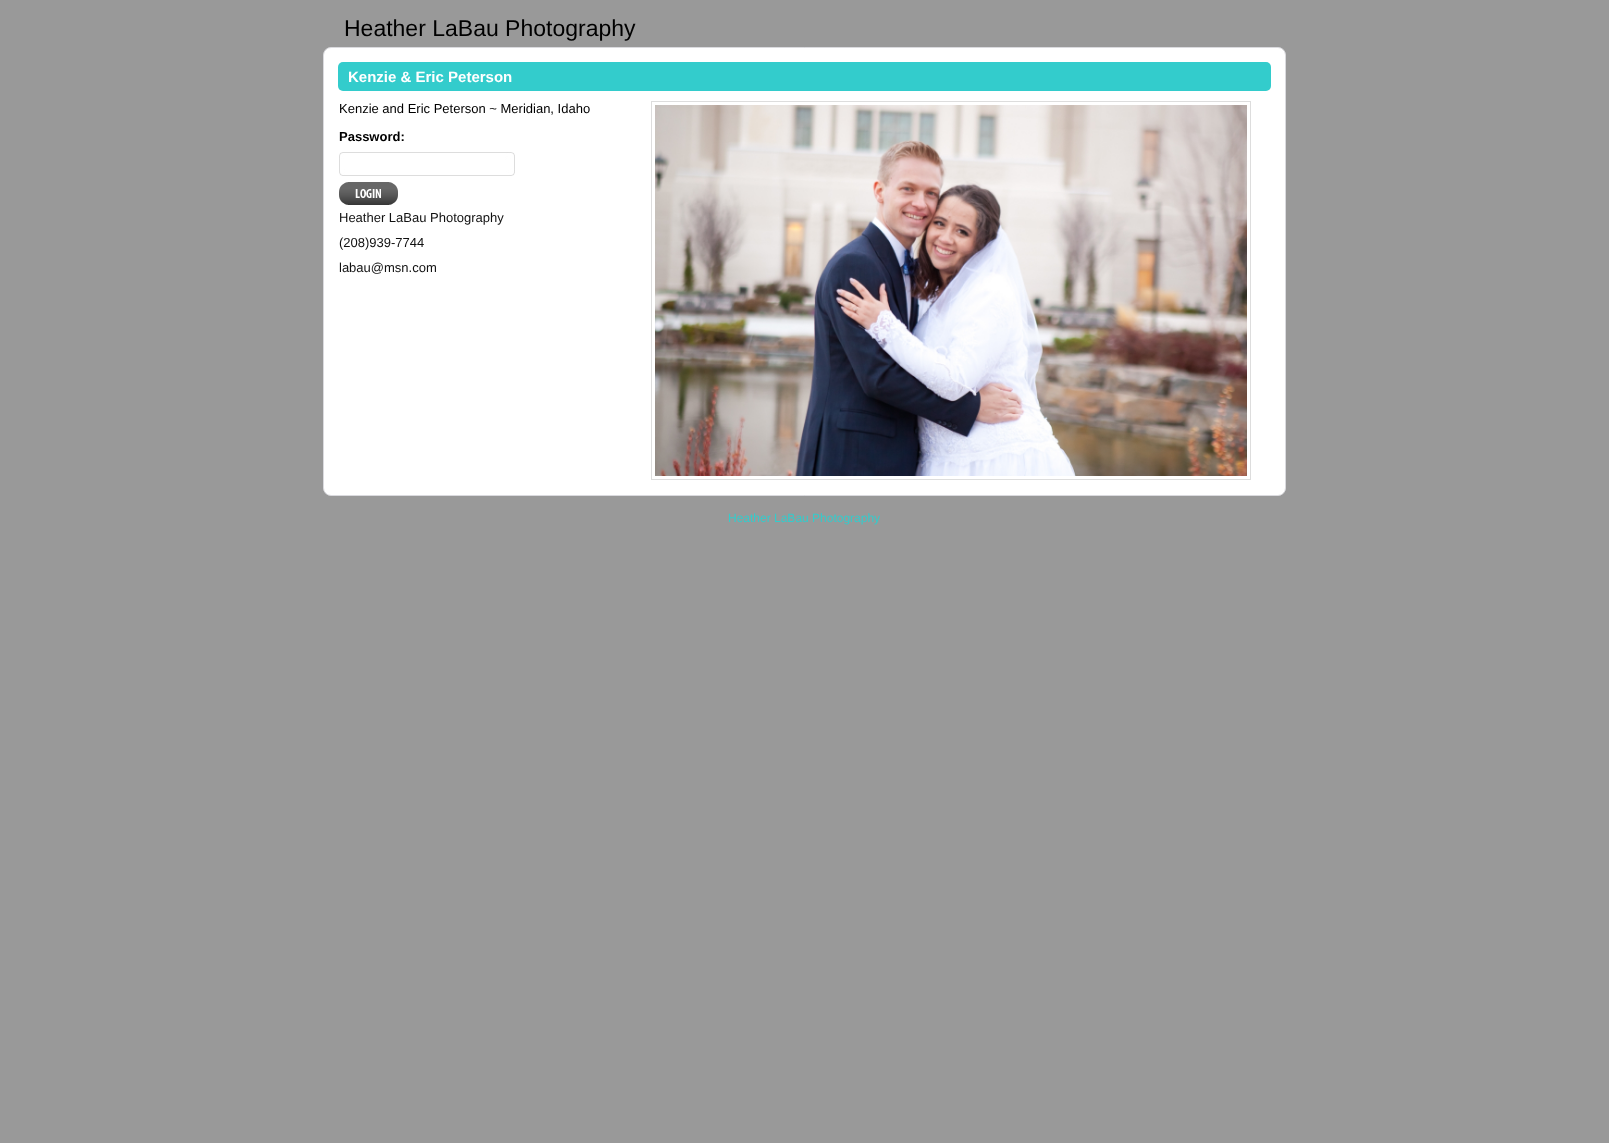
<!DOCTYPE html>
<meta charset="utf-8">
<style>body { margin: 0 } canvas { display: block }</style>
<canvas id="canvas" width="1609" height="1143"></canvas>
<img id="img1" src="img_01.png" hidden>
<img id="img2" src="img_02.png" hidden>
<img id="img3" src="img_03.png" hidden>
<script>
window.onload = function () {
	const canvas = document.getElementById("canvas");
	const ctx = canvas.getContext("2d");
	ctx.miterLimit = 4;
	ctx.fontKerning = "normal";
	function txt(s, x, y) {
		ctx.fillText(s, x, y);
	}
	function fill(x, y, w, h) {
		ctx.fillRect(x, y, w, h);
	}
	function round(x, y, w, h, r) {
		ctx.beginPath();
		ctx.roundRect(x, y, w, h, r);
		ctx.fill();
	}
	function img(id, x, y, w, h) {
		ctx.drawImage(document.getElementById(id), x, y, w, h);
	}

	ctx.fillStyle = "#999999";
	fill(0, 0, 1609, 1143);
	ctx.fillStyle = "#FFFFFF";
	ctx.beginPath();
	ctx.roundRect(323.5, 47.5, 962, 448, 7.5);
	ctx.fill();
	ctx.strokeStyle = "#DADADE";
	ctx.stroke();
	ctx.fillStyle = "#33CCCC";
	round(338, 62, 933, 29, 5);
	img("img1", 339, 152, 176, 24);
	img("img2", 339, 182, 59, 23);
	ctx.strokeStyle = "#DDDDDD";
	ctx.strokeRect(651.5, 101.5, 599, 378);
	img("img3", 655, 105, 592, 371);
	ctx.font = "23px Liberation Sans";
	ctx.fillStyle = "#000000";
	txt("Heather LaBau Photography", 344, 36);
	ctx.font = "bold 15px Liberation Sans";
	ctx.fillStyle = "#FFFFFF";
	txt("Kenzie & Eric Peterson", 348, 82);
	ctx.font = "13px Liberation Sans";
	ctx.fillStyle = "#000000";
	txt("Kenzie and Eric Peterson ~ Meridian, Idaho", 339, 113);
	ctx.font = "bold 13px Liberation Sans";
	txt("Password:", 339, 141);
	ctx.font = "13px Liberation Sans";
	ctx.fillStyle = "#111111";
	txt("Heather LaBau Photography", 339, 222);
	txt("(208)939-7744", 339, 247);
	txt("labau@msn.com", 339, 272);
	ctx.font = "12px Liberation Sans";
	ctx.fillStyle = "#33CCCC";
	txt("Heather LaBau Photography", 728, 522);
};
</script>
